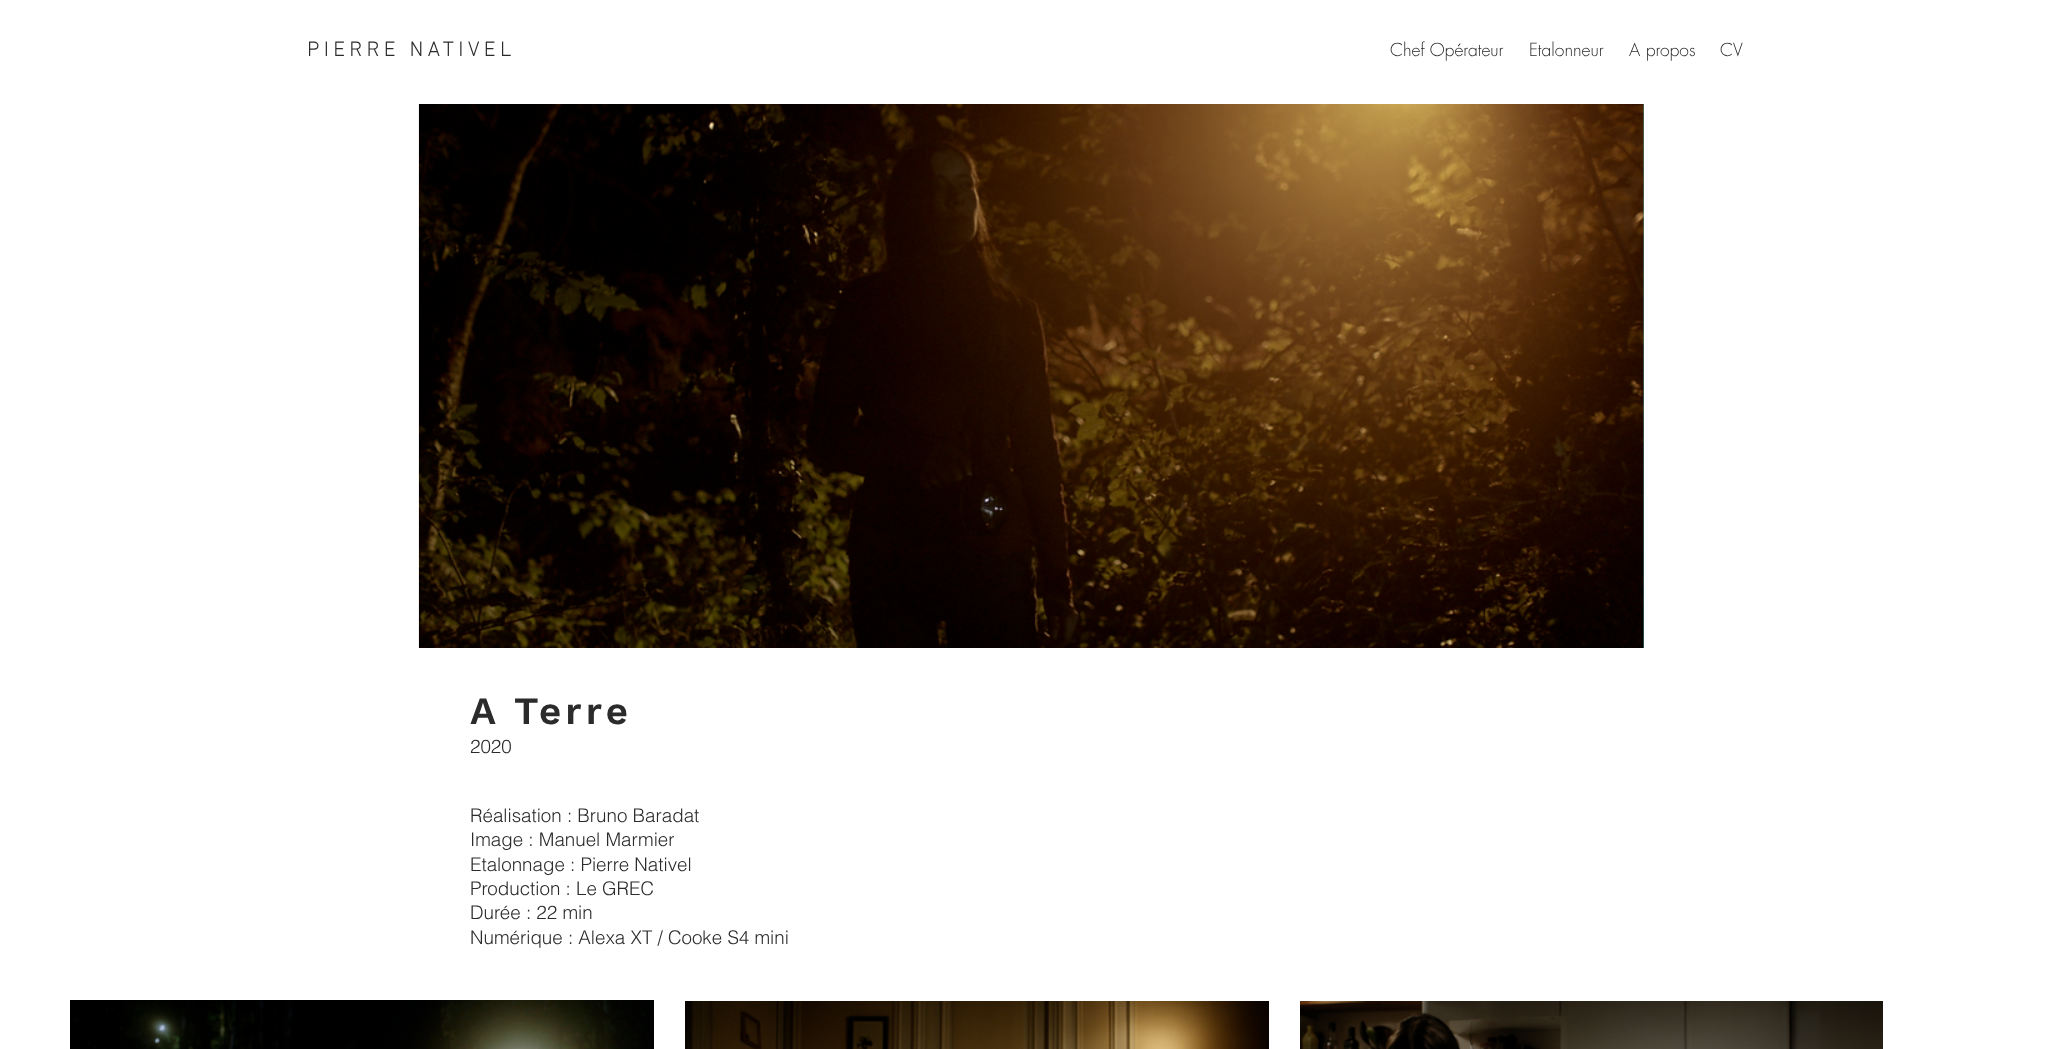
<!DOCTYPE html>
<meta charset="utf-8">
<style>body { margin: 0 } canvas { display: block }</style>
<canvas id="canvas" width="2062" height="1049"></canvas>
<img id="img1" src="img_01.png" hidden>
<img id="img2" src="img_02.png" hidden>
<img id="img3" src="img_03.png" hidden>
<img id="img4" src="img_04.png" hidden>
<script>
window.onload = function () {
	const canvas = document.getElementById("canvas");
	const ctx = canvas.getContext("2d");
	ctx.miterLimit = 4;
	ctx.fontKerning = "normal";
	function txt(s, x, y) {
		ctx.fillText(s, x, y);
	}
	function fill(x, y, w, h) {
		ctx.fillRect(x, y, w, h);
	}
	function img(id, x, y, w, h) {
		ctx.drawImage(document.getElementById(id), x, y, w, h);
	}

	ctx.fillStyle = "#FFFFFF";
	fill(0, 0, 2062, 1049);
	ctx.fillStyle = "#59A8AB";
	fill(1643, 104, 1, 544);
	img("img1", 418, 104, 1226, 544);
	img("img2", 70, 1000, 584, 49);
	img("img3", 685, 1001, 584, 48);
	img("img4", 1300, 1001, 583, 48);
	ctx.letterSpacing = "4.25px";
	ctx.font = "300 21.25px 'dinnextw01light'";
	ctx.fillStyle = "#2B2B2B";
	txt("PIERRE NATIVEL", 307, 56);
	ctx.letterSpacing = "0px";
	ctx.font = "300 17.5px futura";
	txt("Chef Opérateur", 1390, 56);
	txt("Etalonneur", 1529, 56);
	txt("A propos", 1629, 56);
	txt("CV", 1720, 56);
	ctx.letterSpacing = "4px";
	ctx.font = "600 38.75px Work Sans";
	txt("A Terre", 470, 724);
	ctx.letterSpacing = "0px";
	ctx.font = "300 18.75px helvetica";
	txt("2020", 470, 753);
	txt("Réalisation : Bruno Baradat", 470, 822);
	txt("Image : Manuel Marmier", 470, 846);
	txt("Etalonnage : Pierre Nativel", 470, 871);
	txt("Production : Le GREC", 470, 895);
	txt("Durée : 22 min", 470, 919);
	txt("Numérique : Alexa XT / Cooke S4 mini", 470, 944);
};
</script>
